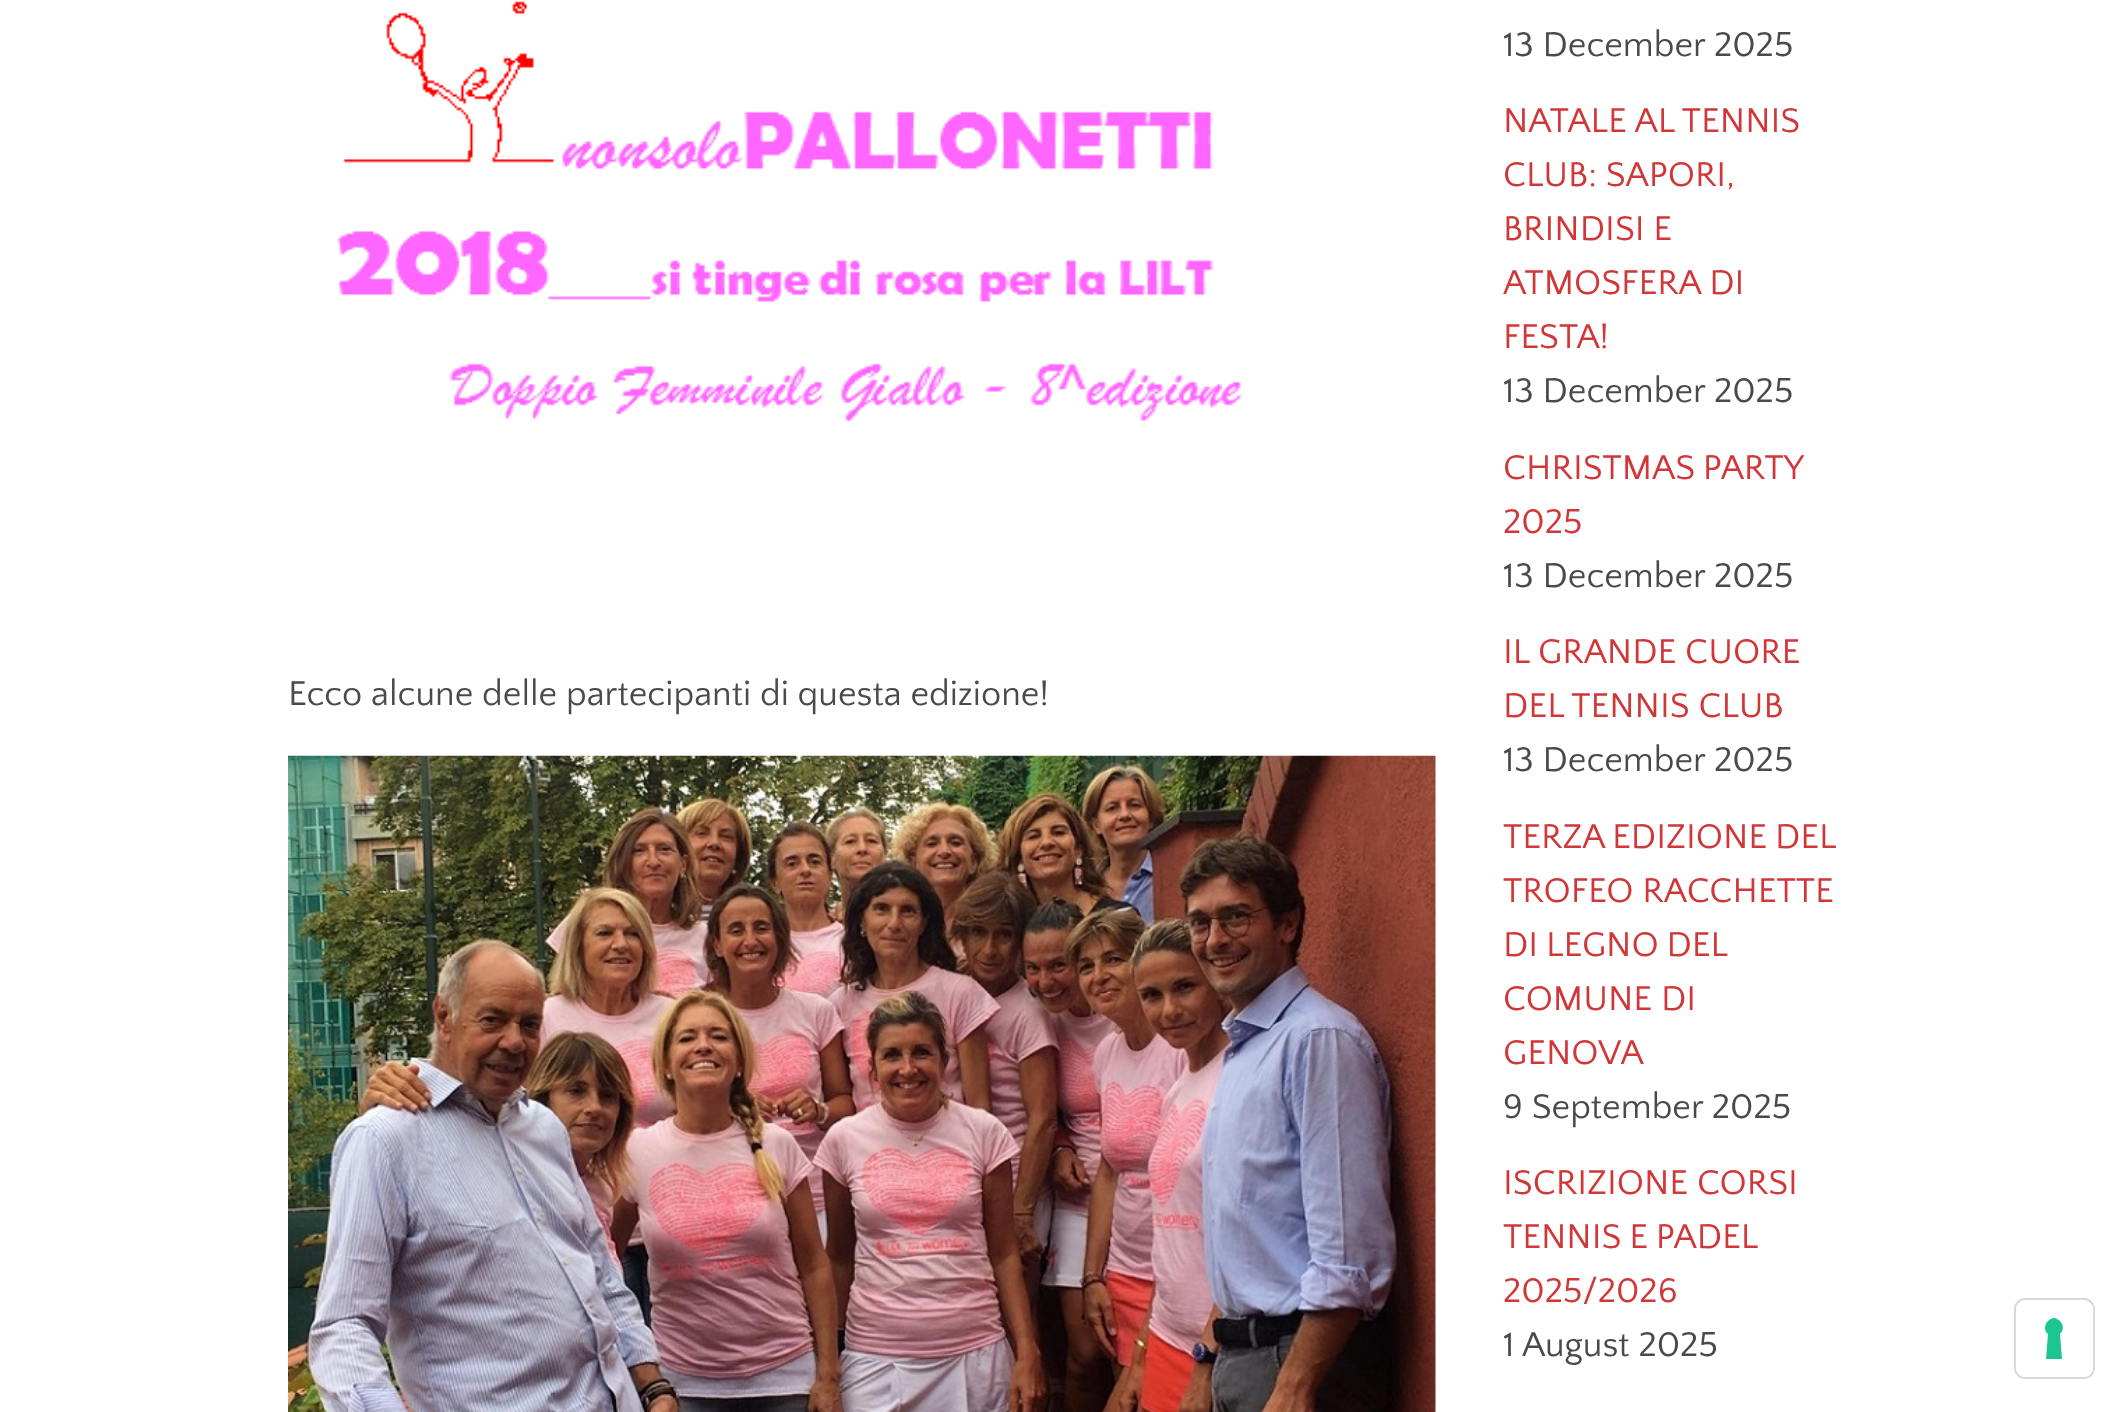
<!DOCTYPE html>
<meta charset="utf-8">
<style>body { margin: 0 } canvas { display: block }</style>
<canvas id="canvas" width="2127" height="1412"></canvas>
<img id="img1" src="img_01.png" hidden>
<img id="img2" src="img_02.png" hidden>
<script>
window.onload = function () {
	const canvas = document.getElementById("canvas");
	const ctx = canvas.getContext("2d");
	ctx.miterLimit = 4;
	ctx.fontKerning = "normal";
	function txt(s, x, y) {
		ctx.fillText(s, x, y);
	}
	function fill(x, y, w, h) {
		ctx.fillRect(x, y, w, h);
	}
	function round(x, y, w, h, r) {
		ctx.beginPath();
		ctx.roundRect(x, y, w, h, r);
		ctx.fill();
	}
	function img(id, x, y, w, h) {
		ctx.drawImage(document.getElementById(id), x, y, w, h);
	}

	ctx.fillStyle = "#FFFFFF";
	fill(0, 0, 2127, 1412);
	img("img1", 337, 1, 906, 421);
	img("img2", 288, 755, 1148, 657);
	ctx.beginPath();
	ctx.roundRect(2015, 1299, 79, 79, 10);
	ctx.strokeStyle = "#D9D9D9";
	ctx.lineWidth = 2;
	ctx.stroke();
	round(2016, 1301, 77, 76, 9);
	ctx.fillStyle = "#1CC691";
	ctx.beginPath();
	ctx.moveTo(2054, 1318);
	ctx.bezierCurveTo(2062, 1319, 2066, 1329, 2060, 1334);
	ctx.lineTo(2062, 1359);
	ctx.lineTo(2046, 1359);
	ctx.lineTo(2048, 1334);
	ctx.bezierCurveTo(2042, 1329, 2046, 1319, 2054, 1318);
	ctx.closePath();
	ctx.fill("evenodd");
	ctx.font = "36px Quattrocento Sans";
	ctx.fillStyle = "#4A4A4A";
	txt("Ecco alcune delle partecipanti di questa edizione!", 288, 705);
	txt("13 December 2025", 1503, 56);
	ctx.fillStyle = "#D13738";
	txt("NATALE AL TENNIS", 1503, 132);
	txt("CLUB: SAPORI,", 1503, 186);
	txt("BRINDISI E", 1503, 240);
	txt("ATMOSFERA DI", 1503, 294);
	txt("FESTA!", 1503, 348);
	ctx.fillStyle = "#4A4A4A";
	txt("13 December 2025", 1503, 402);
	ctx.wordSpacing = "-1px";
	ctx.fillStyle = "#D13738";
	txt("CHRISTMAS PARTY", 1503, 479);
	ctx.wordSpacing = "0px";
	txt("2025", 1503, 533);
	ctx.fillStyle = "#4A4A4A";
	txt("13 December 2025", 1503, 587);
	ctx.fillStyle = "#D13738";
	txt("IL GRANDE CUORE", 1503, 663);
	txt("DEL TENNIS CLUB", 1503, 717);
	ctx.fillStyle = "#4A4A4A";
	txt("13 December 2025", 1503, 771);
	ctx.wordSpacing = "-1px";
	ctx.fillStyle = "#D13738";
	txt("TERZA EDIZIONE DEL", 1503, 848);
	ctx.wordSpacing = "0px";
	txt("TROFEO RACCHETTE", 1503, 902);
	ctx.wordSpacing = "-1px";
	txt("DI LEGNO DEL", 1503, 956);
	ctx.wordSpacing = "0px";
	txt("COMUNE DI", 1503, 1010);
	txt("GENOVA", 1503, 1064);
	ctx.fillStyle = "#4A4A4A";
	txt("9 September 2025", 1503, 1118);
	ctx.fillStyle = "#D13738";
	txt("ISCRIZIONE CORSI", 1503, 1194);
	ctx.wordSpacing = "-1px";
	txt("TENNIS E PADEL", 1503, 1248);
	ctx.wordSpacing = "0px";
	txt("2025/2026", 1503, 1302);
	ctx.fillStyle = "#4A4A4A";
	txt("1 August 2025", 1503, 1356);
};
</script>
